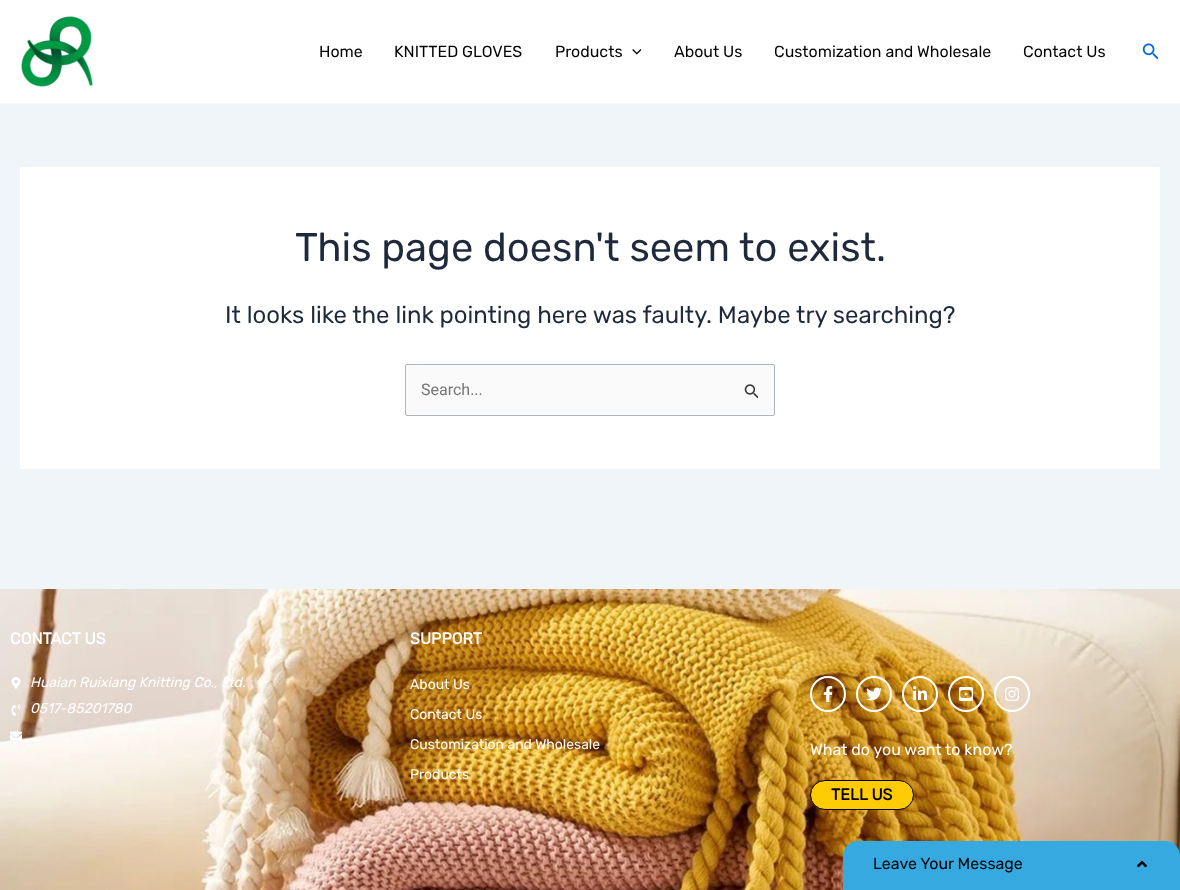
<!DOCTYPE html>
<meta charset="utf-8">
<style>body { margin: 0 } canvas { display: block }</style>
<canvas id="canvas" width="1180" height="890"></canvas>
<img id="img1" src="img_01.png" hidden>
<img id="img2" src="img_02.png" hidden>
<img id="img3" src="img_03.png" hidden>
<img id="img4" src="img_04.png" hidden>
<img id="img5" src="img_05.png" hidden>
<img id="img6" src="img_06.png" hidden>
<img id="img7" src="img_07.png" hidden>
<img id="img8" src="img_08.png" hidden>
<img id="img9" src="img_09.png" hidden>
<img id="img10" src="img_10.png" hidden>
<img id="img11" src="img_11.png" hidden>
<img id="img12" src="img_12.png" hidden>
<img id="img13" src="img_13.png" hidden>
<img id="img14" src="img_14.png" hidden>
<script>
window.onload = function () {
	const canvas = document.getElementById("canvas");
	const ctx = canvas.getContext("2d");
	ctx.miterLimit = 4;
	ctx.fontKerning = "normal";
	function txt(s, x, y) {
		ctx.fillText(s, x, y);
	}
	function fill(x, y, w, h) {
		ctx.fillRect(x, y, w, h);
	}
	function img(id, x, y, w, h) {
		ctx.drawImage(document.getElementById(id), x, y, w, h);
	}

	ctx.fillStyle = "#F0F5FA";
	fill(0, 0, 1180, 890);
	ctx.fillStyle = "#FFFFFF";
	fill(0, 0, 1180, 103);
	img("img1", 21, 16, 72, 71);
	img("img2", 632, 49, 10, 6);
	img("img3", 1142, 43, 16, 17);
	fill(20, 167, 1140, 302);
	ctx.fillStyle = "#FAFAFA";
	ctx.beginPath();
	ctx.roundRect(405.5, 364.5, 369, 51, 1.5);
	ctx.fill();
	ctx.strokeStyle = "#ADB6BE";
	ctx.stroke();
	img("img4", 744, 384, 14, 15);
	img("img5", 0, 589, 1180, 301);
	img("img6", 11, 677, 10, 12);
	img("img7", 11, 704, 10, 12);
	img("img8", 10, 731, 12, 10);
	ctx.beginPath();
	ctx.arc(828, 694, 17, 0, Math.PI * 2);
	ctx.strokeStyle = "#FFFFFF";
	ctx.lineWidth = 2;
	ctx.stroke();
	img("img9", 823, 686, 10, 16);
	ctx.beginPath();
	ctx.arc(874, 694, 17, 0, Math.PI * 2);
	ctx.stroke();
	img("img10", 866, 687, 16, 14);
	ctx.beginPath();
	ctx.arc(920, 694, 17, 0, Math.PI * 2);
	ctx.stroke();
	img("img11", 913, 686, 14, 14);
	ctx.beginPath();
	ctx.arc(966, 694, 17, 0, Math.PI * 2);
	ctx.stroke();
	img("img12", 959, 687, 14, 14);
	ctx.beginPath();
	ctx.arc(1012, 694, 17, 0, Math.PI * 2);
	ctx.stroke();
	img("img13", 1005, 687, 14, 14);
	ctx.fillStyle = "#FFCB05";
	ctx.beginPath();
	ctx.roundRect(810.5, 780.5, 103, 29, 14.5);
	ctx.fill();
	ctx.strokeStyle = "#000000";
	ctx.lineWidth = 1;
	ctx.stroke();
	ctx.fillStyle = "#36A9E1";
	ctx.beginPath();
	ctx.roundRect(843, 841, 337, 49, [15, 15, 0, 0]);
	ctx.fill();
	img("img14", 1137, 860, 10, 8);
	ctx.font = "16px Rubik";
	ctx.fillStyle = "#000000";
	txt("Home", 319, 57);
	txt("KNITTED GLOVES", 394, 57);
	txt("Products", 555, 57);
	txt("About Us", 674, 57);
	txt("Customization and Wholesale", 774, 57);
	txt("Contact Us", 1023, 57);
	ctx.font = "40px Rubik";
	ctx.fillStyle = "#1E293B";
	txt("This page doesn't seem to exist.", 295, 261);
	ctx.font = "24px Rubik";
	txt("It looks like the link pointing here was faulty. Maybe try searching?", 225, 323);
	ctx.font = "16px Roboto";
	ctx.fillStyle = "#757575";
	txt("Search...", 421, 395);
	ctx.font = "bold 16px Rubik";
	ctx.fillStyle = "#FFFFFF";
	txt("CONTACT US", 10, 644);
	ctx.font = "italic 14px Rubik";
	txt("Huaian Ruixiang Knitting Co., Ltd.", 30, 687);
	txt("0517-85201780", 30, 713);
	ctx.font = "bold 16px Rubik";
	txt("SUPPORT", 410, 644);
	ctx.font = "14px Rubik";
	txt("About Us", 410, 689);
	txt("Contact Us", 410, 719);
	txt("Customization and Wholesale", 410, 749);
	txt("Products", 410, 779);
	ctx.font = "16px Rubik";
	txt("What do you want to know?", 810, 755);
	ctx.font = "bold 16px Rubik";
	ctx.fillStyle = "#000000";
	txt("TELL US", 831, 800);
	ctx.font = "16px Rubik";
	txt("Leave Your Message", 873, 869);
};
</script>
